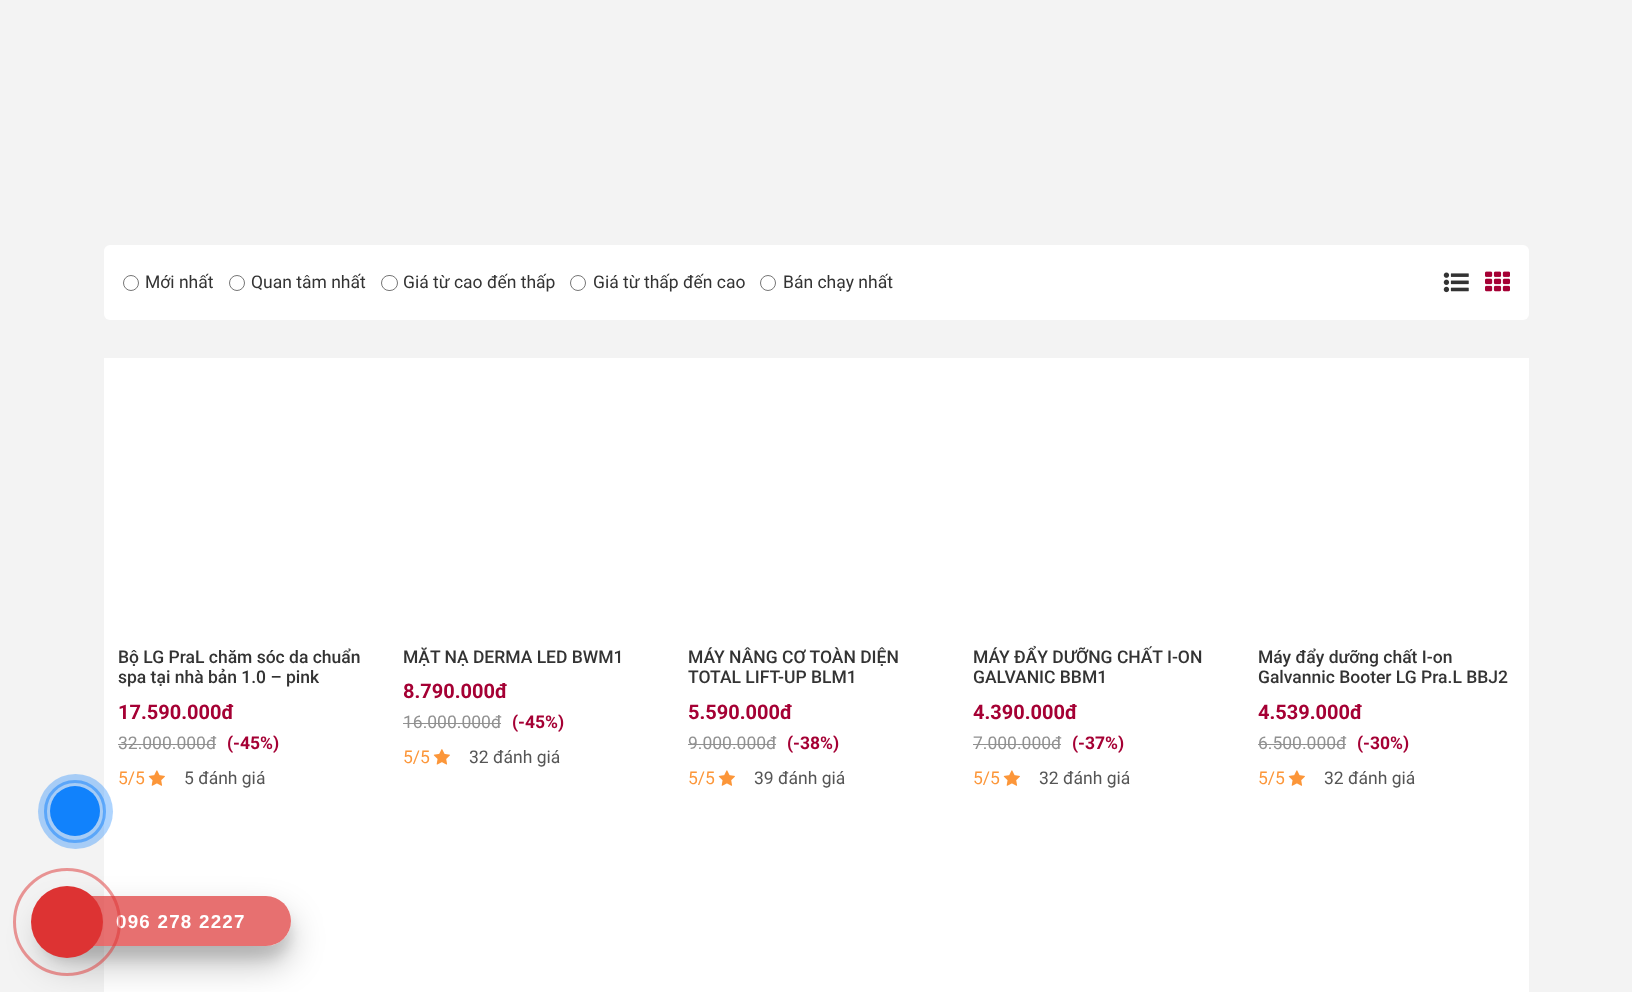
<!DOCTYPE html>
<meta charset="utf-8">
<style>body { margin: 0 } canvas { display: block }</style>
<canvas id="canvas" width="1632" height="992"></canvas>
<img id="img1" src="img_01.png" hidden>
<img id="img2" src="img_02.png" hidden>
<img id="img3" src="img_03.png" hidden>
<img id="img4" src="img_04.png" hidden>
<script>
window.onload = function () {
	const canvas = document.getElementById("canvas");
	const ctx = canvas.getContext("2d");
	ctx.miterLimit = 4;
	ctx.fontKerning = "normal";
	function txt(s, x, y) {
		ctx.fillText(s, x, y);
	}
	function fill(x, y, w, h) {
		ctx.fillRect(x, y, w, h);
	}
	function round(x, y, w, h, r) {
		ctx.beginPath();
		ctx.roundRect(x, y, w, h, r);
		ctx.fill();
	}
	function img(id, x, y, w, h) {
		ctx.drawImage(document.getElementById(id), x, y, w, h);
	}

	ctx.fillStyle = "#F3F3F3";
	fill(0, 0, 1632, 992);
	ctx.fillStyle = "#FFFFFF";
	round(104, 245, 1425, 75, 6);
	ctx.beginPath();
	ctx.arc(131, 283, 7.5, 0, Math.PI * 2);
	ctx.strokeStyle = "#767676";
	ctx.stroke();
	ctx.beginPath();
	ctx.arc(237, 283, 7.5, 0, Math.PI * 2);
	ctx.stroke();
	ctx.beginPath();
	ctx.roundRect(381.5, 275.5, 16, 15, 7.5);
	ctx.stroke();
	ctx.beginPath();
	ctx.arc(578, 283, 7.5, 0, Math.PI * 2);
	ctx.stroke();
	ctx.beginPath();
	ctx.arc(768, 283, 7.5, 0, Math.PI * 2);
	ctx.stroke();
	img("img1", 1443, 272, 26, 21);
	img("img2", 1485, 271, 25, 21);
	fill(104, 358, 1425, 634);
	ctx.fillStyle = "#919191";
	fill(118, 744, 98, 1);
	img("img3", 148, 770, 17, 16);
	fill(403, 723, 98, 1);
	img("img4", 433, 749, 17, 16);
	fill(688, 744, 88, 1);
	img("img3", 718, 770, 17, 16);
	fill(973, 744, 88, 1);
	img("img3", 1003, 770, 17, 16);
	fill(1258, 744, 88, 1);
	img("img3", 1288, 770, 17, 16);
	ctx.beginPath();
	ctx.roundRect(45.5, 781.5, 59, 60, 29.5);
	ctx.strokeStyle = "rgba(17, 130, 252, 0.5)";
	ctx.lineWidth = 3;
	ctx.stroke();
	ctx.fillStyle = "rgba(17, 130, 252, 0.34)";
	ctx.beginPath();
	ctx.arc(75.5, 811.5, 37.5, 0, Math.PI * 2);
	ctx.fill();
	ctx.fillStyle = "#1182FC";
	ctx.beginPath();
	ctx.arc(75, 811, 25, 0, Math.PI * 2);
	ctx.fill();
	ctx.save();
	ctx.beginPath();
	ctx.moveTo(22, 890);
	ctx.lineTo(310, 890);
	ctx.lineTo(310, 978);
	ctx.lineTo(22, 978);
	ctx.closePath();
	ctx.moveTo(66, 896);
	ctx.lineTo(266, 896);
	ctx.bezierCurveTo(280, 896, 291, 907, 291, 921);
	ctx.bezierCurveTo(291, 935, 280, 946, 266, 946);
	ctx.lineTo(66, 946);
	ctx.bezierCurveTo(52, 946, 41, 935, 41, 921);
	ctx.bezierCurveTo(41, 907, 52, 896, 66, 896);
	ctx.closePath();
	ctx.clip("evenodd");
	ctx.fillStyle = "rgba(0, 0, 0, 0.1)";
	ctx.filter = "blur(6px)";
	ctx.beginPath();
	ctx.roundRect(41, 909, 250, 50, 25);
	ctx.fill();
	ctx.filter = "none";
	ctx.restore();
	ctx.save();
	ctx.beginPath();
	ctx.moveTo(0, 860);
	ctx.lineTo(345, 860);
	ctx.lineTo(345, 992);
	ctx.lineTo(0, 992);
	ctx.closePath();
	ctx.moveTo(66, 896);
	ctx.lineTo(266, 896);
	ctx.bezierCurveTo(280, 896, 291, 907, 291, 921);
	ctx.bezierCurveTo(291, 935, 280, 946, 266, 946);
	ctx.lineTo(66, 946);
	ctx.bezierCurveTo(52, 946, 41, 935, 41, 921);
	ctx.bezierCurveTo(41, 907, 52, 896, 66, 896);
	ctx.closePath();
	ctx.clip("evenodd");
	ctx.fillStyle = "rgba(0, 0, 0, 0.25)";
	ctx.filter = "blur(17.5px)";
	ctx.beginPath();
	ctx.roundRect(41, 914, 250, 50, 25);
	ctx.fill();
	ctx.filter = "none";
	ctx.restore();
	ctx.fillStyle = "rgba(221, 51, 51, 0.7)";
	round(41, 896, 250, 50, 25);
	ctx.font = "17.5px Roboto";
	ctx.fillStyle = "#333333";
	txt("Mới nhất", 145, 288);
	txt("Quan tâm nhất", 251, 288);
	txt("Giá từ cao đến thấp", 403, 288);
	txt("Giá từ thấp đến cao", 593, 288);
	txt("Bán chạy nhất", 783, 288);
	ctx.font = "500 17.5px Roboto";
	txt("Bộ LG PraL chăm sóc da chuẩn", 118, 663);
	txt("spa tại nhà bản 1.0 – pink", 118, 683);
	ctx.font = "bold 20px Roboto";
	ctx.fillStyle = "#A50034";
	txt("17.590.000đ", 118, 719);
	ctx.font = "17.5px Roboto";
	ctx.fillStyle = "#919191";
	txt("32.000.000đ", 118, 749);
	ctx.font = "bold 17.5px Roboto";
	ctx.fillStyle = "#A50034";
	txt("(-45%)", 227, 749);
	ctx.font = "17.5px Roboto";
	ctx.fillStyle = "#FC9639";
	txt("5/5", 118, 784);
	ctx.fillStyle = "#555555";
	txt("5 đánh giá", 184, 784);
	ctx.font = "500 17.5px Roboto";
	ctx.fillStyle = "#333333";
	txt("MẶT NẠ DERMA LED BWM1", 403, 663);
	ctx.font = "bold 20px Roboto";
	ctx.fillStyle = "#A50034";
	txt("8.790.000đ", 403, 698);
	ctx.font = "17.5px Roboto";
	ctx.fillStyle = "#919191";
	txt("16.000.000đ", 403, 728);
	ctx.font = "bold 17.5px Roboto";
	ctx.fillStyle = "#A50034";
	txt("(-45%)", 512, 728);
	ctx.font = "17.5px Roboto";
	ctx.fillStyle = "#FC9639";
	txt("5/5", 403, 763);
	ctx.fillStyle = "#555555";
	txt("32 đánh giá", 469, 763);
	ctx.font = "500 17.5px Roboto";
	ctx.fillStyle = "#333333";
	txt("MÁY NÂNG CƠ TOÀN DIỆN", 688, 663);
	txt("TOTAL LIFT-UP BLM1", 688, 683);
	ctx.font = "bold 20px Roboto";
	ctx.fillStyle = "#A50034";
	txt("5.590.000đ", 688, 719);
	ctx.font = "17.5px Roboto";
	ctx.fillStyle = "#919191";
	txt("9.000.000đ", 688, 749);
	ctx.font = "bold 17.5px Roboto";
	ctx.fillStyle = "#A50034";
	txt("(-38%)", 787, 749);
	ctx.font = "17.5px Roboto";
	ctx.fillStyle = "#FC9639";
	txt("5/5", 688, 784);
	ctx.fillStyle = "#555555";
	txt("39 đánh giá", 754, 784);
	ctx.font = "500 17.5px Roboto";
	ctx.fillStyle = "#333333";
	txt("MÁY ĐẨY DƯỠNG CHẤT I-ON", 973, 663);
	txt("GALVANIC BBM1", 973, 683);
	ctx.font = "bold 20px Roboto";
	ctx.fillStyle = "#A50034";
	txt("4.390.000đ", 973, 719);
	ctx.font = "17.5px Roboto";
	ctx.fillStyle = "#919191";
	txt("7.000.000đ", 973, 749);
	ctx.font = "bold 17.5px Roboto";
	ctx.fillStyle = "#A50034";
	txt("(-37%)", 1072, 749);
	ctx.font = "17.5px Roboto";
	ctx.fillStyle = "#FC9639";
	txt("5/5", 973, 784);
	ctx.fillStyle = "#555555";
	txt("32 đánh giá", 1039, 784);
	ctx.font = "500 17.5px Roboto";
	ctx.fillStyle = "#333333";
	txt("Máy đẩy dưỡng chất I-on", 1258, 663);
	txt("Galvannic Booter LG Pra.L BBJ2", 1258, 683);
	ctx.font = "bold 20px Roboto";
	ctx.fillStyle = "#A50034";
	txt("4.539.000đ", 1258, 719);
	ctx.font = "17.5px Roboto";
	ctx.fillStyle = "#919191";
	txt("6.500.000đ", 1258, 749);
	ctx.font = "bold 17.5px Roboto";
	ctx.fillStyle = "#A50034";
	txt("(-30%)", 1357, 749);
	ctx.font = "17.5px Roboto";
	ctx.fillStyle = "#FC9639";
	txt("5/5", 1258, 784);
	ctx.fillStyle = "#555555";
	txt("32 đánh giá", 1324, 784);
	ctx.letterSpacing = "1.25px";
	ctx.font = "bold 18.75px Liberation Sans";
	ctx.fillStyle = "#FFFFFF";
	txt("096 278 2227", 116, 928);
	ctx.beginPath();
	ctx.arc(67, 922, 52.5, 0, Math.PI * 2);
	ctx.strokeStyle = "rgba(221, 51, 51, 0.5)";
	ctx.stroke();
	ctx.fillStyle = "#DD3333";
	ctx.beginPath();
	ctx.arc(67, 922, 36, 0, Math.PI * 2);
	ctx.fill();
};
</script>
